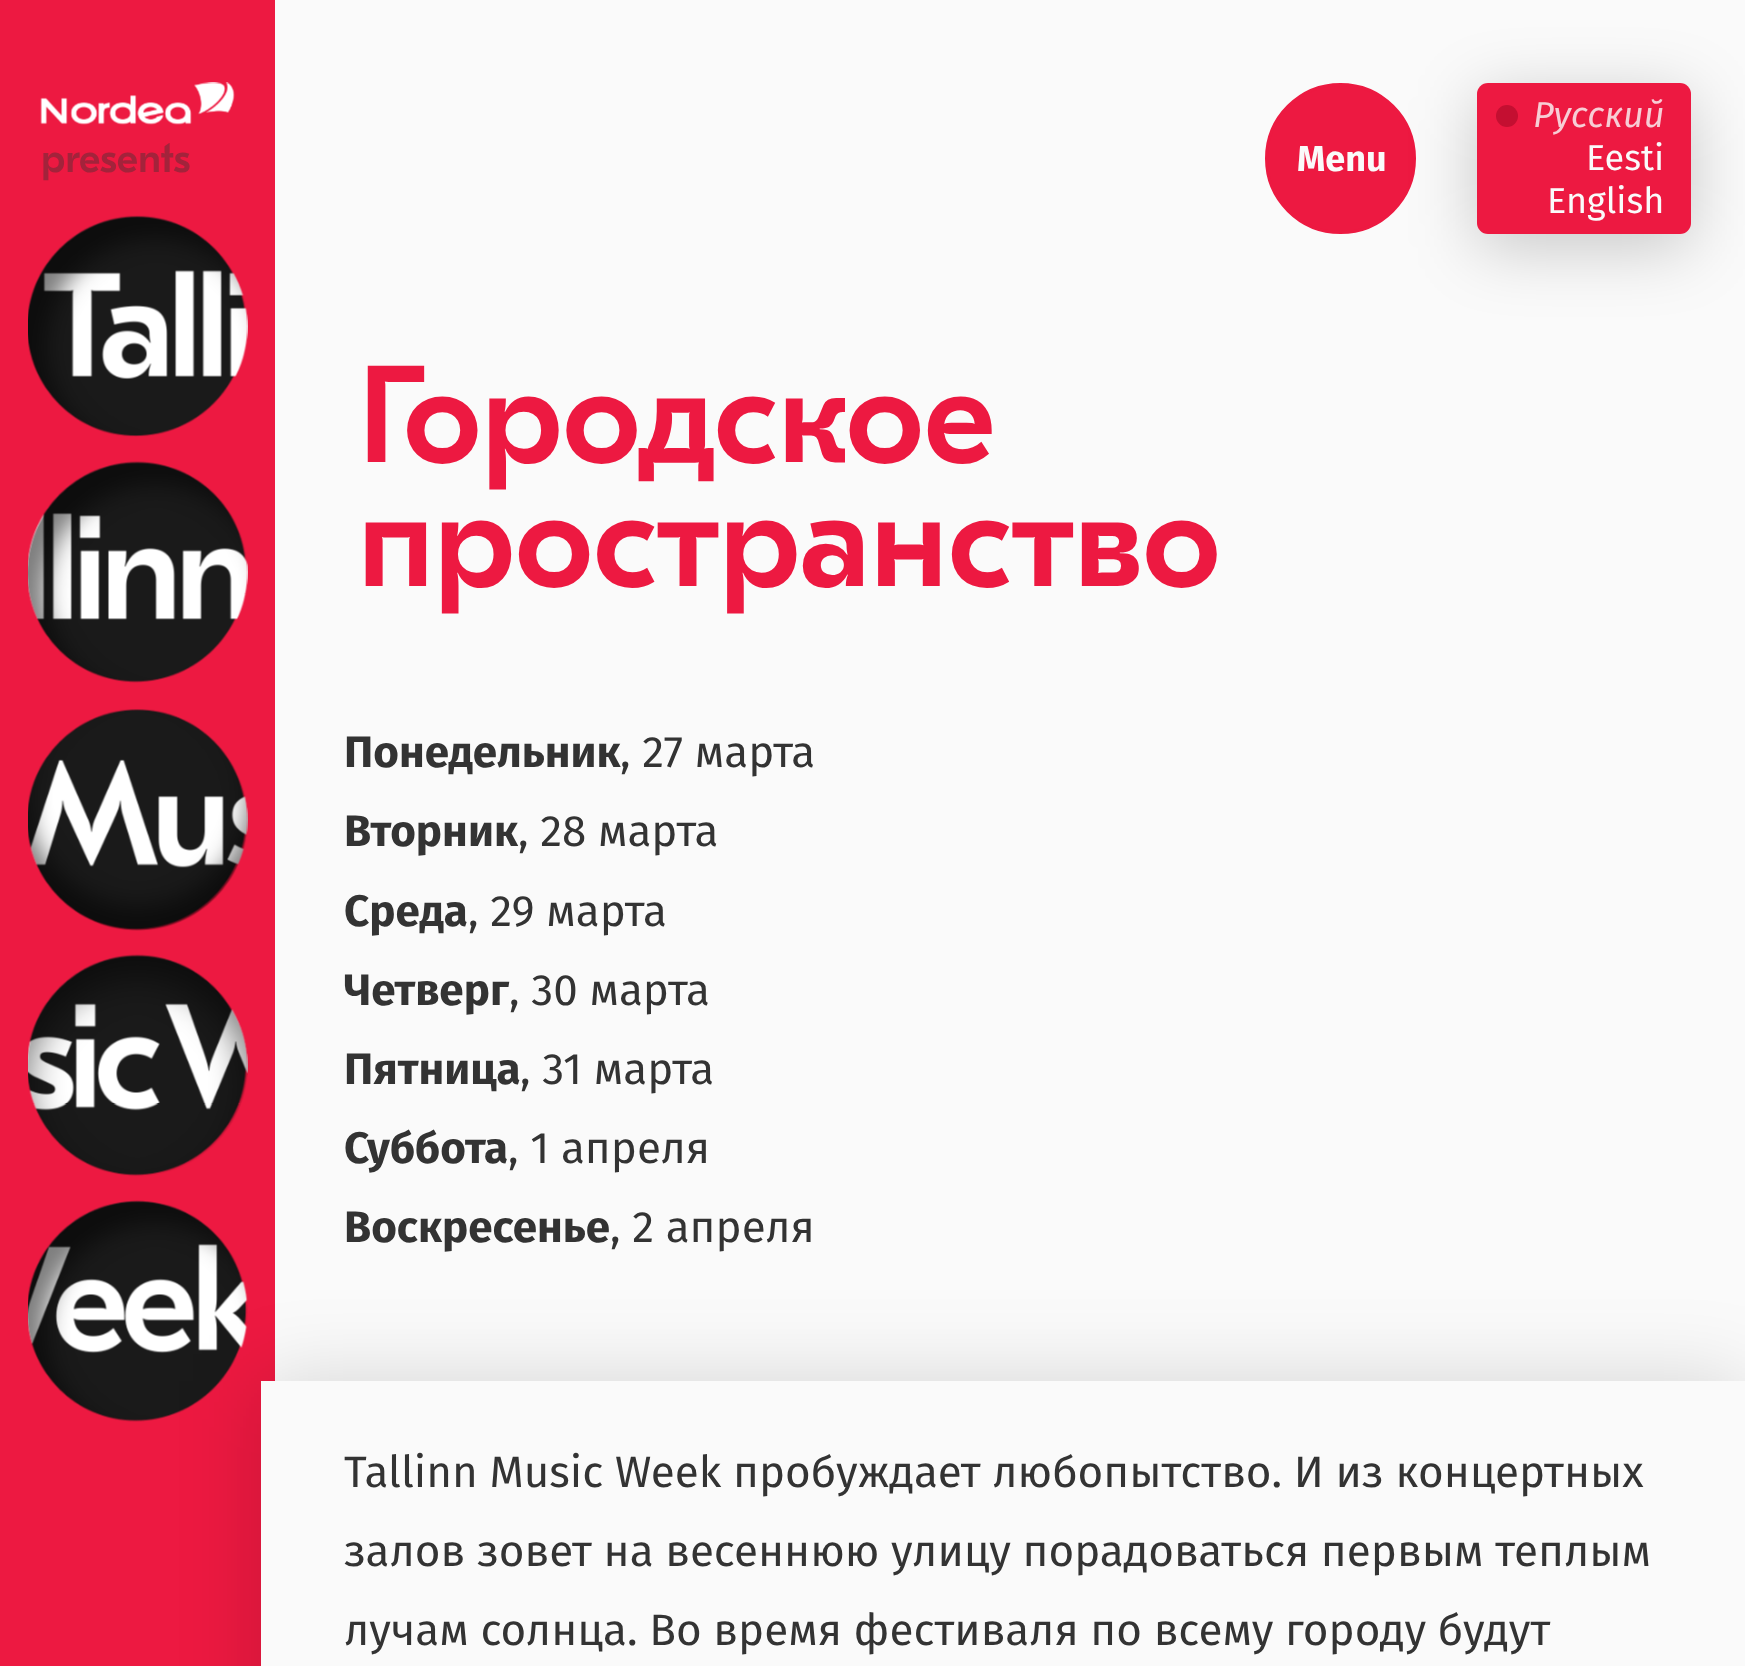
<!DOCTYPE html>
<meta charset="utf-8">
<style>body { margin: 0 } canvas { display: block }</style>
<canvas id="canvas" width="1745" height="1666"></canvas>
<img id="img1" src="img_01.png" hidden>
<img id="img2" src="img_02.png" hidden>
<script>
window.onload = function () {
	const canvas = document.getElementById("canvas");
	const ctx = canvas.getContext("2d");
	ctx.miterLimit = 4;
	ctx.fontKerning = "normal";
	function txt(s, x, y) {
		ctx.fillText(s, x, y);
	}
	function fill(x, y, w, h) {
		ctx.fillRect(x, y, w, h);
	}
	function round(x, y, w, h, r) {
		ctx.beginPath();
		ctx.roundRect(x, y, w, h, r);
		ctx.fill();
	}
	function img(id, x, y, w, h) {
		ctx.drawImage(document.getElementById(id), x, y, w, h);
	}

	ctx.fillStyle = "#FAFAFA";
	fill(0, 0, 1745, 1666);
	ctx.fillStyle = "#ED1941";
	ctx.beginPath();
	ctx.arc(1340.5, 158.5, 74, 0, Math.PI * 2);
	ctx.fill();
	ctx.strokeStyle = "#ED1941";
	ctx.lineWidth = 3;
	ctx.stroke();
	ctx.fillStyle = "rgba(0, 0, 0, 0.2)";
	ctx.filter = "blur(33px)";
	ctx.beginPath();
	ctx.roundRect(1477, 96, 214, 152, 11);
	ctx.fill();
	ctx.filter = "none";
	ctx.fillStyle = "#ED1941";
	round(1477, 83, 214, 151, 11);
	ctx.fillStyle = "#C40F31";
	ctx.beginPath();
	ctx.arc(1507, 116, 11, 0, Math.PI * 2);
	ctx.fill();
	ctx.fillStyle = "#ED1941";
	fill(0, 0, 275, 1666);
	img("img1", 40, 82, 195, 43);
	img("img2", 28, 215, 220, 1207);
	ctx.fillStyle = "rgba(0, 0, 0, 0.15)";
	ctx.filter = "blur(41px)";
	ctx.beginPath();
	ctx.rect(261, 1381, 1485, 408);
	ctx.fill();
	ctx.filter = "none";
	ctx.fillStyle = "#FAFAFA";
	fill(261, 1381, 1484, 285);
	ctx.font = "bold 36px Fira Sans";
	txt("Menu", 1297, 171);
	ctx.font = "italic 36px Fira Sans";
	ctx.fillStyle = "#F7CDD5";
	txt("Русский", 1533, 127);
	ctx.font = "36px Fira Sans";
	ctx.fillStyle = "#FAFAFA";
	txt("Eesti", 1586, 170);
	txt("English", 1547, 213);
	ctx.font = "500 41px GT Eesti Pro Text";
	ctx.fillStyle = "#A3233B";
	txt("presents", 41, 172);
	ctx.font = "500 137.5px GT Eesti Pro Text";
	ctx.fillStyle = "#ED1941";
	txt("Городское", 358, 462);
	txt("пространство", 358, 586);
	ctx.font = "bold 44px Fira Sans";
	ctx.fillStyle = "#333333";
	txt("Понедельник", 344, 767);
	ctx.font = "44px Fira Sans";
	txt(", 27 марта", 620, 767);
	ctx.font = "bold 44px Fira Sans";
	txt("Вторник", 344, 846);
	ctx.font = "44px Fira Sans";
	txt(", 28 марта", 518, 846);
	ctx.font = "bold 44px Fira Sans";
	txt("Среда", 344, 926);
	ctx.font = "44px Fira Sans";
	txt(", 29 марта", 468, 926);
	ctx.font = "bold 44px Fira Sans";
	txt("Четверг", 344, 1005);
	ctx.font = "44px Fira Sans";
	txt(", 30 марта", 509, 1005);
	ctx.font = "bold 44px Fira Sans";
	txt("Пятница", 344, 1084);
	ctx.font = "44px Fira Sans";
	txt(", 31 марта", 520, 1084);
	ctx.font = "bold 44px Fira Sans";
	txt("Суббота", 344, 1163);
	ctx.font = "44px Fira Sans";
	txt(", 1 апреля", 508, 1163);
	ctx.font = "bold 44px Fira Sans";
	txt("Воскресенье", 344, 1242);
	ctx.font = "44px Fira Sans";
	txt(", 2 апреля", 610, 1242);
	txt("Tallinn Music Week пробуждает любопытство. И из концертных", 344, 1487);
	txt("залов зовет на весеннюю улицу порадоваться первым теплым", 344, 1566);
	txt("лучам солнца. Во время фестиваля по всему городу будут", 344, 1645);
};
</script>
